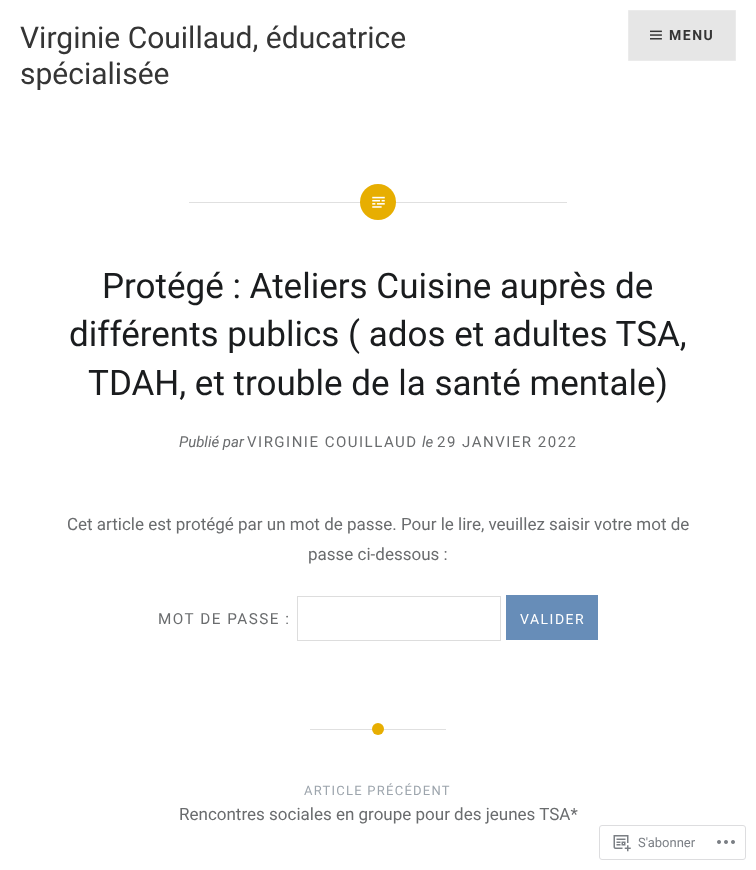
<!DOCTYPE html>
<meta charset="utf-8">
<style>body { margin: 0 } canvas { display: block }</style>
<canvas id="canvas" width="756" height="870"></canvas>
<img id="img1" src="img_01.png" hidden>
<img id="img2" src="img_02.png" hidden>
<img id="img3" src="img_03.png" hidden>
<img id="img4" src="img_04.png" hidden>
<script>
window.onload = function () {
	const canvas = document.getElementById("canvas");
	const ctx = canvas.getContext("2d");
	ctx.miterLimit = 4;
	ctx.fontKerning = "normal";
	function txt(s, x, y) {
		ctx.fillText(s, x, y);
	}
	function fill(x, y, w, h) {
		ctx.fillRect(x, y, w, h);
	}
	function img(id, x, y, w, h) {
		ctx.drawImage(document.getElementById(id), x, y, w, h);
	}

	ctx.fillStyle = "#FFFFFF";
	fill(0, 0, 756, 870);
	ctx.fillStyle = "#E6E6E6";
	ctx.beginPath();
	ctx.rect(628.5, 10.5, 107, 50);
	ctx.fill();
	ctx.strokeStyle = "#EBEBEB";
	ctx.stroke();
	img("img1", 650, 30, 12, 10);
	ctx.fillStyle = "#E0E0E0";
	fill(189, 202, 378, 1);
	ctx.fillStyle = "#E7AE01";
	ctx.beginPath();
	ctx.arc(378, 202, 18, 0, Math.PI * 2);
	ctx.fill();
	img("img2", 372, 196, 13, 12);
	ctx.strokeStyle = "#DDDDDD";
	ctx.strokeRect(297.5, 596.5, 203, 44);
	ctx.fillStyle = "#678DB8";
	fill(506, 595, 92, 45);
	ctx.fillStyle = "#E0E0E0";
	fill(310, 729, 136, 1);
	ctx.fillStyle = "#E7AE01";
	ctx.beginPath();
	ctx.arc(378, 729, 6, 0, Math.PI * 2);
	ctx.fill();
	ctx.beginPath();
	ctx.roundRect(599.5, 825.5, 146, 34, 2.5);
	ctx.strokeStyle = "#DDDDDF";
	ctx.stroke();
	img("img3", 613, 835, 18, 17);
	img("img4", 717, 840, 18, 4);
	ctx.font = "30px Roboto";
	ctx.fillStyle = "#353535";
	txt("Virginie Couillaud, éducatrice", 20, 48);
	txt("spécialisée", 20, 84);
	ctx.letterSpacing = "1.5px";
	ctx.font = "bold 14px Roboto";
	txt("MENU", 669, 40);
	ctx.letterSpacing = "0px";
	ctx.font = "35px Roboto";
	ctx.fillStyle = "#1A1C1E";
	txt("Protégé : Ateliers Cuisine auprès de", 102, 298);
	txt("différents publics ( ados et adultes TSA,", 69, 346);
	txt("TDAH, et trouble de la santé mentale)", 88, 395);
	ctx.font = "italic 15px Roboto";
	ctx.fillStyle = "#6A6C6E";
	txt("Publié par", 179, 447);
	ctx.letterSpacing = "1.5px";
	ctx.font = "15px Roboto";
	txt("VIRGINIE COUILLAUD", 247, 447);
	ctx.letterSpacing = "0px";
	ctx.font = "italic 15px Roboto";
	txt("le", 422, 447);
	ctx.letterSpacing = "1.5px";
	ctx.font = "15px Roboto";
	txt("29 JANVIER 2022", 437, 447);
	ctx.letterSpacing = "0px";
	ctx.font = "17px Roboto";
	txt("Cet article est protégé par un mot de passe. Pour le lire, veuillez saisir votre mot de", 67, 530);
	txt("passe ci-dessous :", 308, 560);
	ctx.letterSpacing = "1.5px";
	ctx.font = "15.25px Roboto";
	txt("MOT DE PASSE :", 158, 624);
	ctx.font = "14px Roboto";
	ctx.fillStyle = "#FFFFFF";
	txt("VALIDER", 520, 624);
	ctx.letterSpacing = "1.25px";
	ctx.font = "13px Roboto";
	ctx.fillStyle = "#9DA5AD";
	txt("ARTICLE PRÉCÉDENT", 304, 795);
	ctx.letterSpacing = "0px";
	ctx.font = "17px Roboto";
	ctx.fillStyle = "#6A6C6E";
	txt("Rencontres sociales en groupe pour des jeunes TSA*", 179, 820);
	ctx.font = "13px Roboto";
	ctx.fillStyle = "#7B7F85";
	txt("S'abonner", 638, 847);
};
</script>
